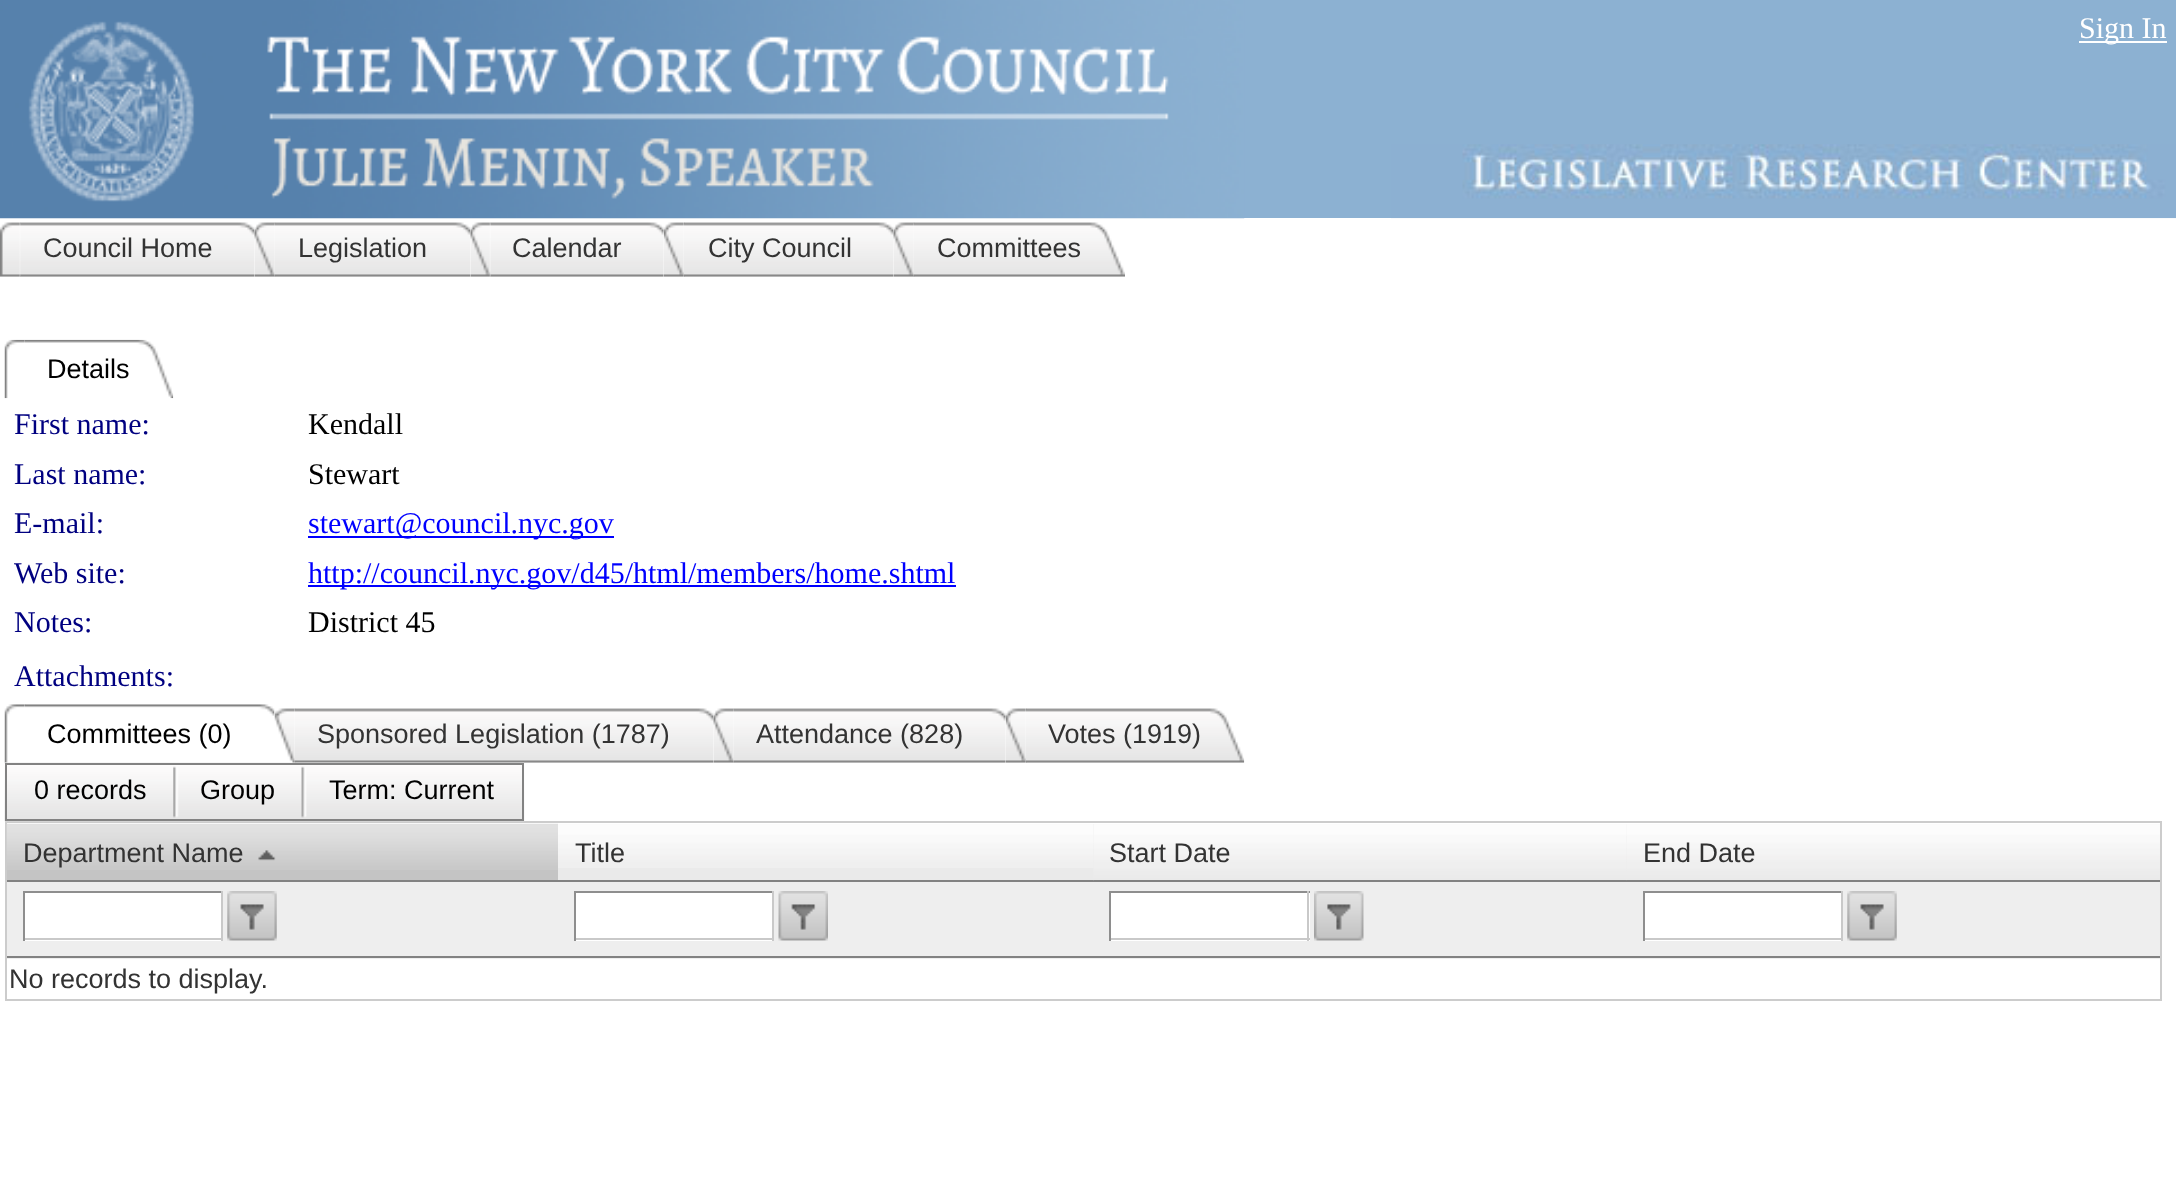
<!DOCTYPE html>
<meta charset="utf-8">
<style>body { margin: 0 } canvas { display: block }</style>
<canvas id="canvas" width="2176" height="1203"></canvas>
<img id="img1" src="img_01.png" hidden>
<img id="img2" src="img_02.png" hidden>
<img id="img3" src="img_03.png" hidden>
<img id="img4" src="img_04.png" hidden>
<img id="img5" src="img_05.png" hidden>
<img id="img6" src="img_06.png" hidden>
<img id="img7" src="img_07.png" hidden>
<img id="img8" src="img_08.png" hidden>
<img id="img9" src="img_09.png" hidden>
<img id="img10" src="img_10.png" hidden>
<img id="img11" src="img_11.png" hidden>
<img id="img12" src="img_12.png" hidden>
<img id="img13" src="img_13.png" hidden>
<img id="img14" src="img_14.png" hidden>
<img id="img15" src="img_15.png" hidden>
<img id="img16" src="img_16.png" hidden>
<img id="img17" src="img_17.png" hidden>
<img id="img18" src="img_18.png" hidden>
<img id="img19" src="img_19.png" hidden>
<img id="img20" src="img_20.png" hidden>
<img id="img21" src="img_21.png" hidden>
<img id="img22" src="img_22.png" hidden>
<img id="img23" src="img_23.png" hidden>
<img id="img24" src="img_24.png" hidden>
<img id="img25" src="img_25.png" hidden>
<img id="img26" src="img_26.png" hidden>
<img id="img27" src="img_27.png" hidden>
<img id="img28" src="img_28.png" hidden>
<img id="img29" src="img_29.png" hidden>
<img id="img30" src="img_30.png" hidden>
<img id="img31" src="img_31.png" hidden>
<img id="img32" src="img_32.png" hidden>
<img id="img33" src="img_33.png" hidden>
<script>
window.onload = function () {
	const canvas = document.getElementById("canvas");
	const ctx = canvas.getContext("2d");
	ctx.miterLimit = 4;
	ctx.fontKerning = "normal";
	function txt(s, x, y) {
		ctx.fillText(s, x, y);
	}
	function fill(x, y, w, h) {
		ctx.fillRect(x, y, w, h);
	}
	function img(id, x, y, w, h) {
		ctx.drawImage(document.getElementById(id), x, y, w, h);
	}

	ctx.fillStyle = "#FFFFFF";
	fill(0, 0, 2176, 1203);
	ctx.fillStyle = "#8CB1D2";
	fill(1244, 0, 932, 218);
	img("img1", 0, 0, 1245, 219);
	img("img2", 1391, 144, 785, 75);
	ctx.fillStyle = "#FFFFFF";
	fill(2079, 41, 88, 2);
	img("img3", 0, 222, 21, 55);
	img("img4", 20, 222, 235, 55);
	img("img5", 254, 222, 22, 55);
	img("img6", 274, 222, 197, 55);
	img("img7", 470, 222, 21, 55);
	img("img8", 490, 222, 174, 55);
	img("img9", 663, 222, 22, 55);
	img("img10", 684, 222, 210, 55);
	img("img11", 893, 222, 22, 55);
	img("img12", 913, 222, 212, 55);
	img("img13", 4, 339, 21, 60);
	img("img14", 24, 339, 150, 60);
	ctx.fillStyle = "#0000FF";
	fill(308, 536, 306, 2);
	fill(308, 585, 648, 2);
	img("img15", 4, 704, 22, 59);
	img("img16", 24, 704, 251, 12);
	img("img17", 274, 708, 22, 55);
	img("img18", 294, 708, 420, 55);
	img("img19", 713, 708, 22, 55);
	img("img20", 733, 708, 273, 55);
	img("img9", 1005, 708, 22, 55);
	img("img21", 1026, 708, 219, 55);
	ctx.strokeStyle = "#CCCCCC";
	ctx.lineWidth = 2;
	ctx.strokeRect(6, 822, 2155, 178);
	img("img22", 4, 762, 521, 60);
	ctx.strokeStyle = "#828282";
	ctx.strokeRect(6, 764, 517, 56);
	img("img23", 173, 766, 6, 52);
	img("img24", 301, 766, 6, 52);
	ctx.fillStyle = "#C4C4C4";
	fill(7, 824, 551, 56);
	img("img25", 6, 823, 552, 47);
	ctx.fillStyle = "#828282";
	fill(7, 880, 1087, 2);
	img("img26", 258, 850, 18, 11);
	ctx.fillStyle = "#EAEAEA";
	fill(558, 824, 1602, 56);
	img("img27", 558, 824, 536, 44);
	img("img28", 1093, 824, 534, 57);
	ctx.fillStyle = "#828282";
	fill(1094, 880, 533, 2);
	img("img29", 1626, 824, 534, 57);
	fill(1627, 880, 533, 2);
	ctx.fillStyle = "#EEEEEE";
	fill(7, 882, 2153, 77);
	ctx.fillStyle = "#828282";
	fill(7, 956, 2153, 2);
	ctx.fillStyle = "#FFFFFF";
	fill(25, 893, 196, 48);
	ctx.fillStyle = "#8E8E8E";
	fill(23, 891, 200, 2);
	ctx.fillStyle = "#C9C9C9";
	fill(221, 891, 2, 50);
	fill(23, 938, 200, 2);
	ctx.fillStyle = "#8E8E8E";
	fill(23, 891, 2, 50);
	img("img30", 227, 891, 50, 50);
	ctx.fillStyle = "#FFFFFF";
	fill(576, 893, 196, 48);
	ctx.fillStyle = "#8E8E8E";
	fill(574, 891, 200, 2);
	ctx.fillStyle = "#C9C9C9";
	fill(772, 891, 2, 50);
	fill(574, 938, 200, 2);
	ctx.fillStyle = "#8E8E8E";
	fill(574, 891, 2, 50);
	img("img31", 778, 891, 50, 50);
	ctx.fillStyle = "#FFFFFF";
	fill(1111, 893, 199, 48);
	ctx.fillStyle = "#8E8E8E";
	fill(1109, 891, 201, 2);
	ctx.fillStyle = "#C9C9C9";
	fill(1307, 891, 2, 50);
	fill(1109, 938, 201, 2);
	ctx.fillStyle = "#8E8E8E";
	fill(1109, 891, 2, 50);
	img("img32", 1314, 891, 50, 50);
	ctx.fillStyle = "#FFFFFF";
	fill(1645, 893, 196, 48);
	ctx.fillStyle = "#8E8E8E";
	fill(1643, 891, 200, 2);
	ctx.fillStyle = "#C9C9C9";
	fill(1841, 891, 2, 50);
	fill(1643, 938, 200, 2);
	ctx.fillStyle = "#8E8E8E";
	fill(1643, 891, 2, 50);
	img("img33", 1847, 891, 50, 50);
	ctx.font = "30px Liberation Serif";
	ctx.fillStyle = "#FFFFFF";
	txt("Sign In", 2079, 38);
	ctx.font = "27px Liberation Sans";
	ctx.fillStyle = "#333333";
	txt("Council Home", 43, 257);
	txt("Legislation", 298, 257);
	txt("Calendar", 512, 257);
	txt("City Council", 708, 257);
	txt("Committees", 937, 257);
	ctx.fillStyle = "#000000";
	txt("Details", 47, 378);
	ctx.font = "30px Liberation Serif";
	ctx.fillStyle = "#000080";
	txt("First name:", 14, 434);
	ctx.fillStyle = "#000000";
	txt("Kendall", 308, 434);
	ctx.fillStyle = "#000080";
	txt("Last name:", 14, 484);
	ctx.fillStyle = "#000000";
	txt("Stewart", 308, 484);
	ctx.fillStyle = "#000080";
	txt("E-mail:", 14, 533);
	ctx.fillStyle = "#0000FF";
	txt("stewart@council.nyc.gov", 308, 533);
	ctx.fillStyle = "#000080";
	txt("Web site:", 14, 583);
	ctx.fillStyle = "#0000FF";
	txt("http://council.nyc.gov/d45/html/members/home.shtml", 308, 583);
	ctx.fillStyle = "#000080";
	txt("Notes:", 14, 632);
	ctx.fillStyle = "#000000";
	txt("District 45", 308, 632);
	ctx.fillStyle = "#000080";
	txt("Attachments:", 14, 686);
	ctx.font = "27px Liberation Sans";
	ctx.fillStyle = "#000000";
	txt("Committees (0)", 47, 743);
	ctx.fillStyle = "#333333";
	txt("Sponsored Legislation (1787)", 317, 743);
	txt("Attendance (828)", 756, 743);
	txt("Votes (1919)", 1048, 743);
	ctx.fillStyle = "#000000";
	txt("0 records", 34, 799);
	txt("Group", 200, 799);
	txt("Term: Current", 329, 799);
	ctx.fillStyle = "#333333";
	txt("Department Name", 23, 862);
	txt("Title", 575, 862);
	txt("Start Date", 1109, 862);
	txt("End Date", 1643, 862);
	txt("No records to display.", 9, 988);
};
</script>
